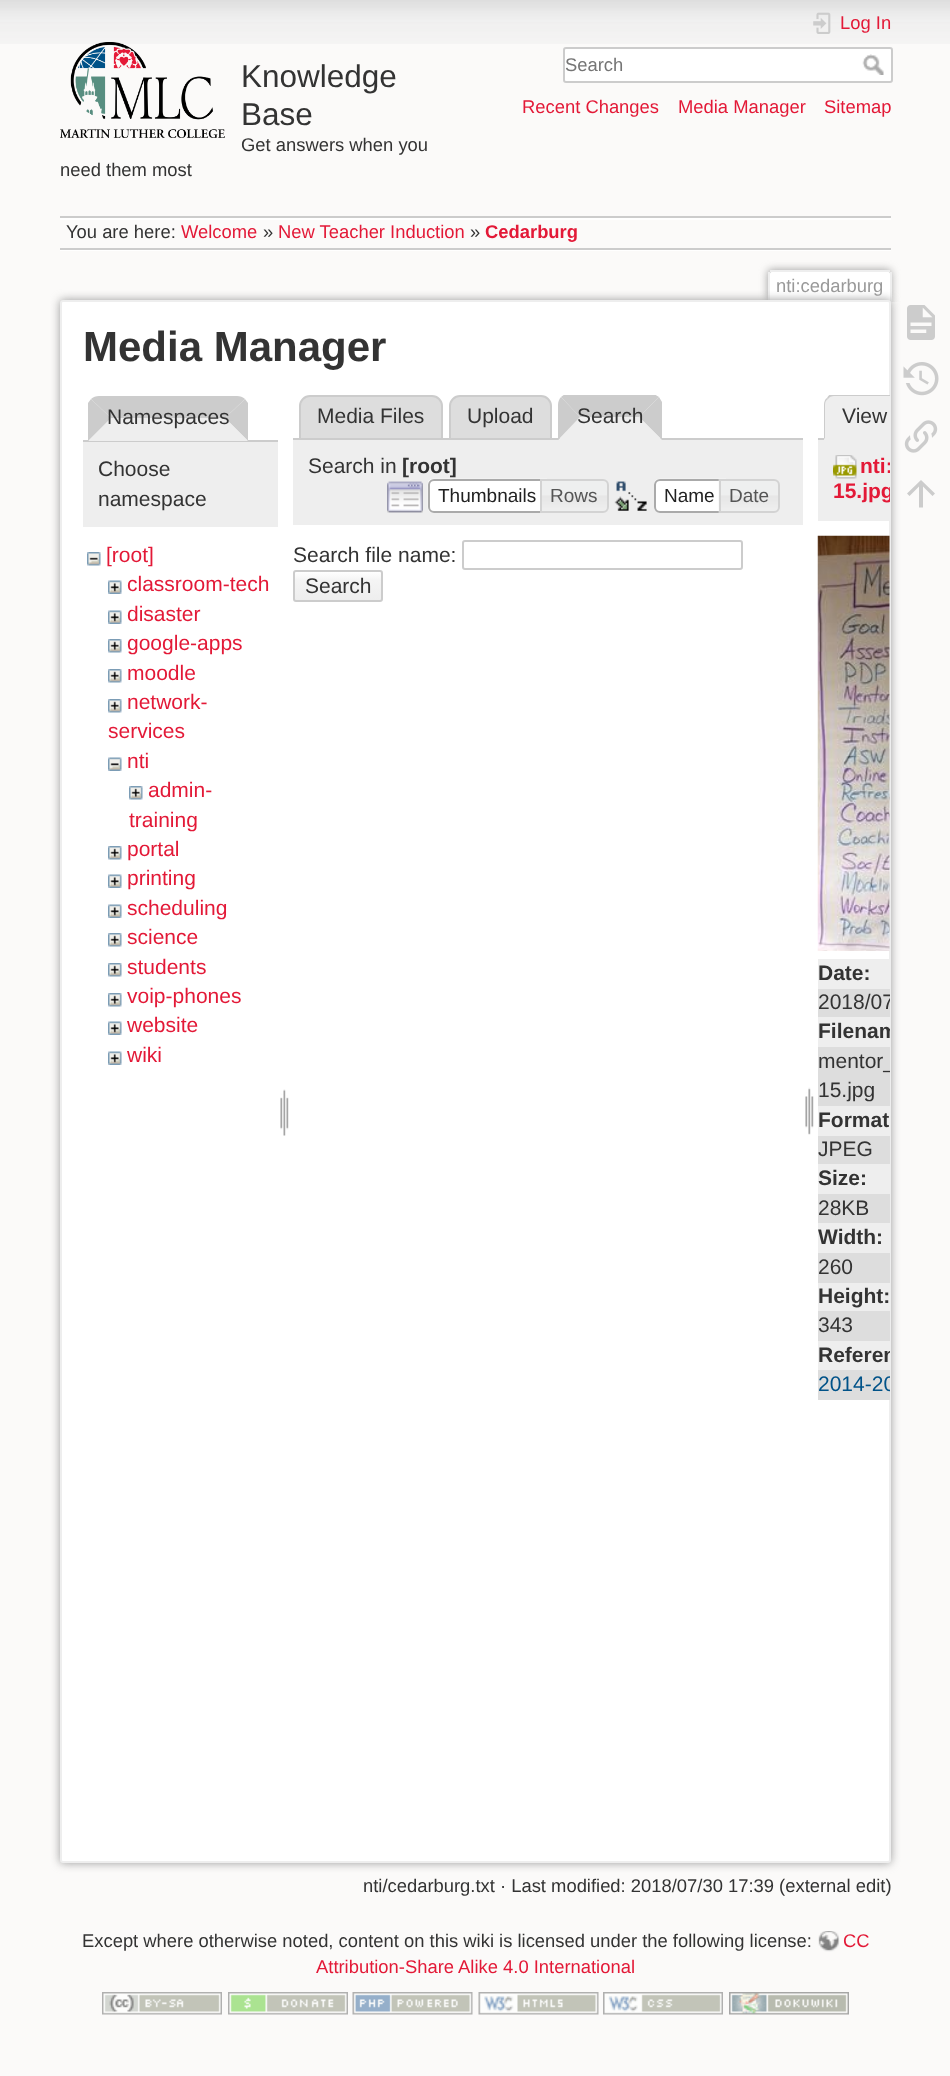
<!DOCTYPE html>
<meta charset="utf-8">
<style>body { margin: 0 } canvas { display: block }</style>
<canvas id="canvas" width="950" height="2076"></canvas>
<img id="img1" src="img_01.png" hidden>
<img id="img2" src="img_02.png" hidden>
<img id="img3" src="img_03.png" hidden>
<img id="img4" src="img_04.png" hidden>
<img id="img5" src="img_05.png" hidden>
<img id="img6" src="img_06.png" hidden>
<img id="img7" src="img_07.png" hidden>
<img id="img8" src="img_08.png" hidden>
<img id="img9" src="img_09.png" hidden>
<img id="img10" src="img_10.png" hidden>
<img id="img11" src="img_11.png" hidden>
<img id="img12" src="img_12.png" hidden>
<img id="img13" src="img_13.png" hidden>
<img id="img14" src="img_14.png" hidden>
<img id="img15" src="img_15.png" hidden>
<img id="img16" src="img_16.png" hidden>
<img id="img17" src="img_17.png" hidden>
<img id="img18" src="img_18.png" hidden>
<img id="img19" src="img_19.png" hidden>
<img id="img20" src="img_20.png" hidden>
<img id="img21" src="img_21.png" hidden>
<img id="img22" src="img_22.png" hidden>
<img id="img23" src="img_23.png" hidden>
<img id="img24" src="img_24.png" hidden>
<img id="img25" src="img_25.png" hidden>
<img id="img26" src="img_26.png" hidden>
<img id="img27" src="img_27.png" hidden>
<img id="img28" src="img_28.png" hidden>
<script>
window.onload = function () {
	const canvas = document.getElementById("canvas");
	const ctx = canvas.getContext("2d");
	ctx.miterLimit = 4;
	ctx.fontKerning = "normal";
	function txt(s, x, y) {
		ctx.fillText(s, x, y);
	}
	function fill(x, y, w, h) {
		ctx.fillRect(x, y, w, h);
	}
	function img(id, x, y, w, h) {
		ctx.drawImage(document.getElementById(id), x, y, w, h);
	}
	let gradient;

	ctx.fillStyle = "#FBFAF9";
	fill(0, 0, 950, 2076);
	img("img1", 0, 0, 950, 44);
	img("img2", 60, 42, 165, 96);
	img("img3", 813, 12, 18, 22);
	ctx.fillStyle = "#FFFFFF";
	ctx.beginPath();
	ctx.roundRect(564, 48, 328, 34, 2);
	ctx.fill();
	ctx.strokeStyle = "#CCCCCC";
	ctx.lineWidth = 2;
	ctx.stroke();
	img("img4", 862, 54, 22, 21);
	ctx.fillStyle = "#CCCCCC";
	fill(60, 216, 831, 2);
	ctx.fillStyle = "#FFFFFF";
	fill(60, 250, 831, 1);
	fill(60, 218, 831, 2);
	ctx.fillStyle = "#CCCCCC";
	fill(60, 248, 831, 2);
	ctx.save();
	ctx.beginPath();
	ctx.rect(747, 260, 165, 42);
	ctx.clip();
	ctx.fillStyle = "#999999";
	ctx.filter = "blur(4.5px)";
	ctx.beginPath();
	ctx.roundRect(768, 270, 123, 32, 3);
	ctx.fill();
	ctx.filter = "none";
	ctx.restore();
	ctx.fillStyle = "#FFFFFF";
	ctx.beginPath();
	ctx.roundRect(770, 272, 120, 30, [1.5, 1.5, 0, 0]);
	ctx.fill();
	ctx.fillStyle = "#EEEEEE";
	fill(770, 270, 120, 2);
	fill(890, 272, 2, 30);
	fill(768, 272, 2, 30);
	ctx.fillStyle = "#999999";
	ctx.filter = "blur(5px)";
	ctx.beginPath();
	ctx.roundRect(60, 300, 831, 1563, 3);
	ctx.fill();
	ctx.filter = "none";
	ctx.fillStyle = "#FFFFFF";
	ctx.beginPath();
	ctx.roundRect(61, 301, 829, 1561, 2);
	ctx.fill();
	ctx.strokeStyle = "#EEEEEE";
	ctx.stroke();
	ctx.fillStyle = "#CCCCCC";
	ctx.beginPath();
	ctx.moveTo(99, 396);
	ctx.lineTo(237, 396);
	ctx.bezierCurveTo(240, 396, 243, 397, 245, 399);
	ctx.lineTo(225, 418);
	ctx.lineTo(111, 418);
	ctx.lineTo(91, 399);
	ctx.bezierCurveTo(93, 397, 96, 396, 99, 396);
	ctx.closePath();
	ctx.fill();
	fill(83, 440, 195, 2);
	ctx.beginPath();
	ctx.moveTo(245, 399);
	ctx.lineTo(225, 418);
	ctx.lineTo(248, 441);
	ctx.lineTo(248, 403);
	ctx.closePath();
	ctx.fill();
	ctx.fillStyle = "#EEEEEE";
	ctx.beginPath();
	ctx.moveTo(248, 441);
	ctx.lineTo(225, 418);
	ctx.lineTo(111, 418);
	ctx.lineTo(88, 441);
	ctx.closePath();
	ctx.fill();
	ctx.fillStyle = "#CCCCCC";
	ctx.beginPath();
	ctx.moveTo(88, 441);
	ctx.lineTo(111, 418);
	ctx.lineTo(91, 399);
	ctx.lineTo(88, 403);
	ctx.closePath();
	ctx.fill();
	ctx.fillStyle = "#EEEEEE";
	fill(83, 442, 195, 85);
	img("img5", 87, 552, 14, 14);
	img("img6", 108, 580, 14, 14);
	img("img6", 108, 610, 14, 14);
	img("img7", 108, 639, 14, 14);
	img("img7", 108, 669, 14, 14);
	img("img7", 108, 699, 14, 14);
	img("img8", 108, 757, 14, 14);
	img("img7", 129, 786, 14, 14);
	img("img7", 108, 846, 14, 14);
	img("img6", 108, 874, 14, 14);
	img("img6", 108, 904, 14, 14);
	img("img7", 108, 933, 14, 14);
	img("img7", 108, 963, 14, 14);
	img("img7", 108, 993, 14, 14);
	img("img6", 108, 1021, 14, 14);
	img("img6", 108, 1051, 14, 14);
	img("img9", 280, 1089, 9, 47);
	ctx.fillStyle = "#DDDDDD";
	ctx.beginPath();
	ctx.roundRect(300, 396, 142, 43, [10, 10, 0, 0]);
	ctx.fill();
	ctx.strokeStyle = "#CCCCCC";
	ctx.stroke();
	ctx.beginPath();
	ctx.roundRect(450, 396, 101, 43, [10, 10, 0, 0]);
	ctx.fill();
	ctx.stroke();
	ctx.save();
	ctx.beginPath();
	ctx.rect(293, 395, 510, 45);
	ctx.clip();
	ctx.fillStyle = "#CCCCCC";
	ctx.beginPath();
	ctx.moveTo(654, 394);
	ctx.lineTo(565, 394);
	ctx.lineTo(561, 397);
	ctx.lineTo(580, 417);
	ctx.lineTo(639, 417);
	ctx.lineTo(659, 397);
	ctx.closePath();
	ctx.fill();
	ctx.restore();
	ctx.fillStyle = "#CCCCCC";
	fill(293, 438, 510, 2);
	ctx.beginPath();
	ctx.moveTo(659, 397);
	ctx.lineTo(639, 417);
	ctx.lineTo(662, 440);
	ctx.lineTo(662, 402);
	ctx.bezierCurveTo(661, 400, 660, 399, 659, 397);
	ctx.closePath();
	ctx.fill();
	ctx.fillStyle = "#EEEEEE";
	ctx.beginPath();
	ctx.moveTo(662, 440);
	ctx.lineTo(639, 417);
	ctx.lineTo(580, 417);
	ctx.lineTo(558, 440);
	ctx.closePath();
	ctx.fill();
	ctx.fillStyle = "#CCCCCC";
	ctx.beginPath();
	ctx.moveTo(558, 440);
	ctx.lineTo(580, 417);
	ctx.lineTo(561, 397);
	ctx.bezierCurveTo(559, 399, 558, 402, 558, 405);
	ctx.closePath();
	ctx.fill();
	ctx.fillStyle = "#EEEEEE";
	fill(293, 440, 510, 85);
	img("img10", 387, 481, 36, 32);
	img("img11", 427, 478, 120, 35);
	ctx.beginPath();
	ctx.roundRect(429, 480, 118, 32, [5, 0, 0, 5]);
	ctx.strokeStyle = "#AAAAAA";
	ctx.stroke();
	img("img12", 542, 479, 67, 34);
	ctx.beginPath();
	ctx.roundRect(541, 480, 67, 32, [0, 5, 5, 0]);
	ctx.strokeStyle = "#D3D3D3";
	ctx.stroke();
	img("img13", 614, 481, 33, 30);
	ctx.fillStyle = "#FFFFFF";
	ctx.beginPath();
	ctx.roundRect(654, 479, 72, 34, [6, 0, 0, 6]);
	ctx.fill();
	img("img14", 654, 478, 72, 32);
	ctx.beginPath();
	ctx.roundRect(655, 480, 70, 32, [5, 0, 0, 5]);
	ctx.strokeStyle = "#AAAAAA";
	ctx.stroke();
	img("img15", 718, 479, 62, 34);
	ctx.beginPath();
	ctx.roundRect(720, 480, 59, 32, [0, 5, 5, 0]);
	ctx.strokeStyle = "#D3D3D3";
	ctx.stroke();
	ctx.beginPath();
	ctx.roundRect(463, 541, 279, 28, 2);
	ctx.strokeStyle = "#CCCCCC";
	ctx.stroke();
	ctx.save();
	ctx.beginPath();
	ctx.roundRect(293, 570, 90, 32, 3);
	ctx.clip();
	gradient = ctx.createLinearGradient(338, 572, 338, 600);
	gradient.addColorStop(0, "#FFFFFF");
	gradient.addColorStop(0.3, "#F4F4F4");
	gradient.addColorStop(0.99, "#EEEEEE");
	gradient.addColorStop(0.99, "#CCCCCC");
	ctx.fillStyle = gradient;
	fill(293, 572, 90, 28);
	ctx.restore();
	ctx.beginPath();
	ctx.roundRect(294, 571, 88, 30, 2);
	ctx.stroke();
	img("img16", 805, 1087, 9, 48);
	ctx.fillStyle = "#EEEEEE";
	ctx.beginPath();
	ctx.roundRect(824, 395, 66, 45, [11, 0, 0, 0]);
	ctx.fill();
	ctx.save();
	ctx.beginPath();
	ctx.rect(818, 395, 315, 45);
	ctx.clip();
	ctx.fillStyle = "#CCCCCC";
	ctx.beginPath();
	ctx.moveTo(890, 394);
	ctx.lineTo(831, 394);
	ctx.bezierCurveTo(829, 395, 828, 396, 827, 398);
	ctx.lineTo(828, 399);
	ctx.bezierCurveTo(829, 397, 832, 396, 834, 396);
	ctx.lineTo(890, 396);
	ctx.closePath();
	ctx.fill();
	ctx.restore();
	ctx.fillStyle = "#CCCCCC";
	ctx.beginPath();
	ctx.moveTo(828, 399);
	ctx.lineTo(827, 398);
	ctx.bezierCurveTo(825, 399, 824, 402, 824, 405);
	ctx.lineTo(824, 439);
	ctx.lineTo(825, 438);
	ctx.lineTo(825, 405);
	ctx.bezierCurveTo(825, 402, 826, 400, 828, 399);
	ctx.closePath();
	ctx.fill();
	fill(818, 438, 6, 2);
	ctx.fillStyle = "#EEEEEE";
	fill(818, 440, 71, 81);
	img("img17", 833, 455, 24, 24);
	img("img18", 817, 535, 73, 416);
	fill(818, 959, 71, 30);
	ctx.fillStyle = "#DDDDDD";
	fill(818, 989, 72, 28);
	ctx.fillStyle = "#EEEEEE";
	fill(818, 1017, 71, 30);
	ctx.fillStyle = "#DDDDDD";
	fill(818, 1047, 72, 59);
	ctx.fillStyle = "#EEEEEE";
	fill(818, 1106, 71, 30);
	ctx.fillStyle = "#DDDDDD";
	fill(818, 1136, 72, 28);
	ctx.fillStyle = "#EEEEEE";
	fill(818, 1164, 71, 30);
	ctx.fillStyle = "#DDDDDD";
	fill(818, 1194, 72, 29);
	ctx.fillStyle = "#EEEEEE";
	fill(818, 1223, 71, 30);
	ctx.fillStyle = "#DDDDDD";
	fill(818, 1253, 72, 30);
	ctx.fillStyle = "#EEEEEE";
	fill(818, 1283, 71, 28);
	ctx.fillStyle = "#DDDDDD";
	fill(818, 1311, 72, 30);
	ctx.fillStyle = "#EEEEEE";
	fill(818, 1341, 71, 29);
	ctx.fillStyle = "#DDDDDD";
	fill(818, 1370, 72, 30);
	img("img19", 907, 305, 28, 35);
	img("img20", 903, 362, 36, 34);
	img("img21", 904, 420, 34, 33);
	ctx.fillStyle = "#CCCCCC";
	ctx.beginPath();
	ctx.moveTo(923, 507.5);
	ctx.lineTo(919, 507.5);
	ctx.lineTo(919, 486.5);
	ctx.lineTo(909.5, 496);
	ctx.lineTo(907, 493.5);
	ctx.lineTo(921, 480);
	ctx.lineTo(935, 493.5);
	ctx.lineTo(932.5, 496);
	ctx.lineTo(923, 486.5);
	ctx.closePath();
	ctx.fill();
	img("img22", 818, 1931, 22, 21);
	img("img23", 102, 1992, 120, 23);
	img("img24", 228, 1992, 120, 23);
	img("img25", 352, 1992, 121, 23);
	img("img26", 478, 1992, 121, 23);
	img("img27", 603, 1992, 120, 23);
	img("img28", 729, 1992, 120, 23);
	ctx.font = "31.5px Liberation Sans";
	ctx.fillStyle = "#333333";
	txt("Knowledge", 241, 87);
	txt("Base", 241, 125);
	ctx.font = "18.4px Liberation Sans";
	txt("Get answers when you", 241, 151);
	txt("need them most", 60, 176);
	ctx.fillStyle = "#E31937";
	txt("Log In", 840, 29);
	ctx.fillStyle = "#757575";
	txt("Search", 565, 71);
	ctx.fillStyle = "#E31937";
	txt("Recent Changes", 522, 113);
	txt("Media Manager", 678, 113);
	txt("Sitemap", 824, 113);
	ctx.fillStyle = "#333333";
	txt("You are here:", 66, 238);
	ctx.fillStyle = "#E31937";
	txt("Welcome", 181, 238);
	ctx.fillStyle = "#333333";
	txt("»", 263, 238);
	ctx.fillStyle = "#E31937";
	txt("New Teacher Induction", 278, 238);
	ctx.fillStyle = "#333333";
	txt("»", 470, 238);
	ctx.font = "bold 18.4px Liberation Sans";
	ctx.fillStyle = "#E31937";
	txt("Cedarburg", 485, 238);
	ctx.font = "18.4px Liberation Sans";
	ctx.fillStyle = "#999999";
	txt("nti:cedarburg", 776, 292);
	ctx.font = "bold 42px Liberation Sans";
	ctx.fillStyle = "#333333";
	txt("Media Manager", 83, 361);
	ctx.font = "21px Liberation Sans";
	txt("Namespaces", 107, 424);
	txt("Choose", 98, 476);
	txt("namespace", 98, 506);
	ctx.fillStyle = "#E31937";
	txt("[root]", 106, 562);
	txt("classroom-tech", 127, 591);
	txt("disaster", 127, 621);
	txt("google-apps", 127, 650);
	txt("moodle", 127, 680);
	txt("network-", 127, 709);
	txt("services", 108, 738);
	txt("nti", 127, 768);
	txt("admin-", 148, 797);
	txt("training", 129, 827);
	txt("portal", 127, 856);
	txt("printing", 127, 885);
	txt("scheduling", 127, 915);
	txt("science", 127, 944);
	txt("students", 127, 974);
	txt("voip-phones", 127, 1003);
	txt("website", 127, 1032);
	txt("wiki", 127, 1062);
	ctx.fillStyle = "#333333";
	txt("Media Files", 317, 423);
	txt("Upload", 467, 423);
	txt("Search", 577, 423);
	txt("Search in", 308, 473);
	ctx.font = "bold 21px Liberation Sans";
	txt("[root]", 402, 473);
	ctx.font = "19px Liberation Sans";
	ctx.fillStyle = "#212121";
	txt("Thumbnails", 438, 502);
	ctx.fillStyle = "#555555";
	txt("Rows", 550, 502);
	ctx.fillStyle = "#212121";
	txt("Name", 664, 502);
	ctx.fillStyle = "#555555";
	txt("Date", 729, 502);
	ctx.font = "21px Liberation Sans";
	ctx.fillStyle = "#333333";
	txt("Search file name:", 293, 562);
	txt("Search", 305, 593);
	txt("View", 842, 423);
	ctx.save();
	ctx.beginPath();
	ctx.roundRect(62, 302, 828, 1560, 1.5);
	ctx.clip();
	ctx.font = "bold 21px Liberation Sans";
	ctx.fillStyle = "#E31937";
	txt("nti:", 860, 473);
	txt("15.jpg", 833, 498);
	ctx.restore();
	ctx.font = "bold 21px Liberation Sans";
	txt("Date:", 818, 980);
	ctx.save();
	ctx.beginPath();
	ctx.roundRect(62, 302, 828, 1560, 1.5);
	ctx.clip();
	ctx.font = "21px Liberation Sans";
	txt("2018/07", 818, 1009);
	ctx.font = "bold 21px Liberation Sans";
	txt("Filenam", 818, 1038);
	ctx.font = "21px Liberation Sans";
	txt("mentor_", 818, 1068);
	ctx.restore();
	ctx.font = "21px Liberation Sans";
	txt("15.jpg", 818, 1097);
	ctx.font = "bold 21px Liberation Sans";
	txt("Format", 818, 1127);
	ctx.font = "21px Liberation Sans";
	txt("JPEG", 818, 1156);
	ctx.font = "bold 21px Liberation Sans";
	txt("Size:", 818, 1185);
	ctx.font = "21px Liberation Sans";
	txt("28KB", 818, 1215);
	ctx.font = "bold 21px Liberation Sans";
	txt("Width:", 818, 1244);
	ctx.font = "21px Liberation Sans";
	txt("260", 818, 1274);
	ctx.font = "bold 21px Liberation Sans";
	txt("Height:", 818, 1303);
	ctx.font = "21px Liberation Sans";
	txt("343", 818, 1332);
	ctx.save();
	ctx.beginPath();
	ctx.roundRect(62, 302, 828, 1560, 1.5);
	ctx.clip();
	ctx.font = "bold 21px Liberation Sans";
	txt("Referen", 818, 1362);
	ctx.font = "21px Liberation Sans";
	ctx.fillStyle = "#005288";
	txt("2014-20", 818, 1391);
	ctx.restore();
	ctx.font = "18.4px Liberation Sans";
	txt("nti/cedarburg.txt · Last modified: 2018/07/30 17:39 (external edit)", 363, 1892);
	txt("Except where otherwise noted, content on this wiki is licensed under the following license:", 82, 1947);
	ctx.fillStyle = "#E31937";
	txt("CC", 843, 1947);
	txt("Attribution-Share Alike 4.0 International", 316, 1973);
};
</script>
